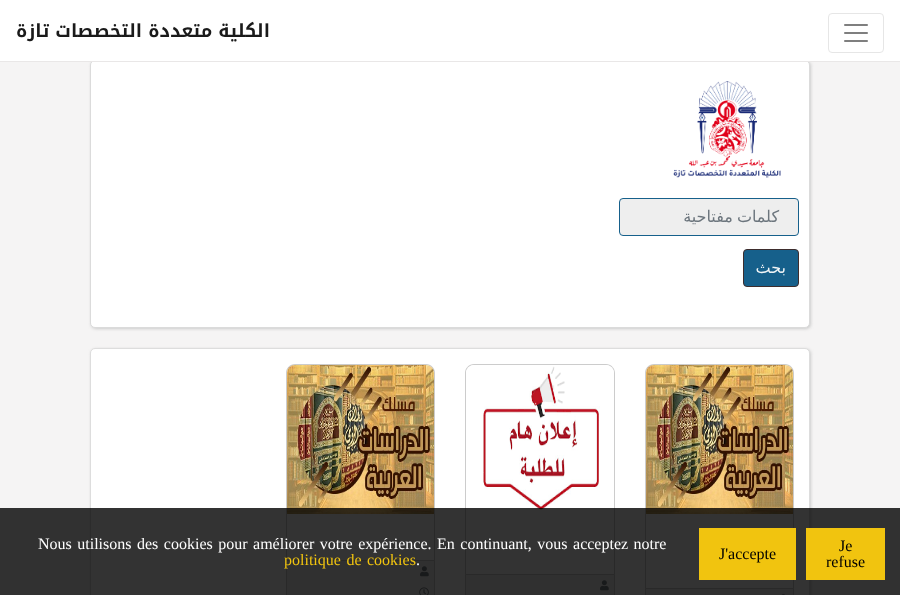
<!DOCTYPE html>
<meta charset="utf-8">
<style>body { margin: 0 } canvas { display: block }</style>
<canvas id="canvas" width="900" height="595"></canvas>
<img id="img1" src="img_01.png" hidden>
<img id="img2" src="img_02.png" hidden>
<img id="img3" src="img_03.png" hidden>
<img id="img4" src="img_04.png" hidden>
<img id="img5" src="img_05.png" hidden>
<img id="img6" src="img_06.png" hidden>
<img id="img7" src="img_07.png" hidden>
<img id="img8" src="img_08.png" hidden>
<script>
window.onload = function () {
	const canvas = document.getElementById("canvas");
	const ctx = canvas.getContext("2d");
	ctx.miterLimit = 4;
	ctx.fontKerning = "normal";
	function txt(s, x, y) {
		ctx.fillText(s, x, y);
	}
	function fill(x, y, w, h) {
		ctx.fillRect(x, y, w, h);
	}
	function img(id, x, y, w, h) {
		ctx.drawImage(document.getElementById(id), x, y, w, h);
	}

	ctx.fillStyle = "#F5F4F4";
	fill(0, 0, 900, 595);
	ctx.fillStyle = "#CCCCCC";
	ctx.filter = "blur(1.5px)";
	ctx.beginPath();
	ctx.roundRect(91, 61, 720, 268, 5);
	ctx.fill();
	ctx.filter = "none";
	ctx.fillStyle = "#FFFFFF";
	ctx.beginPath();
	ctx.roundRect(90.5, 60.5, 719, 267, 4.5);
	ctx.fill();
	ctx.strokeStyle = "#DBDBDB";
	ctx.stroke();
	fill(0, 0, 900, 61);
	ctx.fillStyle = "#E9E7E7";
	fill(0, 61, 900, 1);
	ctx.beginPath();
	ctx.roundRect(828.5, 13.5, 55, 39, 3.5);
	ctx.strokeStyle = "#E6E6E6";
	ctx.stroke();
	img("img1", 844, 24, 24, 18);
	img("img2", 673, 81, 108, 97);
	ctx.fillStyle = "#EEEEEE";
	ctx.beginPath();
	ctx.roundRect(619.5, 198.5, 179, 37, 3.5);
	ctx.fill();
	ctx.strokeStyle = "#16608B";
	ctx.stroke();
	ctx.fillStyle = "#16608B";
	ctx.beginPath();
	ctx.roundRect(743.5, 249.5, 55, 37, 3.5);
	ctx.fill();
	ctx.strokeStyle = "#3E2D2D";
	ctx.stroke();
	ctx.fillStyle = "#CCCCCC";
	ctx.filter = "blur(1.5px)";
	ctx.beginPath();
	ctx.roundRect(91, 349, 720, 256, 5);
	ctx.fill();
	ctx.filter = "none";
	ctx.fillStyle = "#FFFFFF";
	ctx.beginPath();
	ctx.roundRect(90.5, 348.5, 719, 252, 4.5);
	ctx.fill();
	ctx.strokeStyle = "#DDDDDD";
	ctx.stroke();
	ctx.strokeStyle = "#CCCCCC";
	ctx.strokeRect(286.5, 513.5, 148, 49);
	ctx.fillStyle = "#CCCCCC";
	ctx.beginPath();
	ctx.moveTo(295, 364);
	ctx.lineTo(426, 364);
	ctx.bezierCurveTo(431, 364, 435, 368, 435, 373);
	ctx.lineTo(435, 514);
	ctx.lineTo(286, 514);
	ctx.lineTo(286, 373);
	ctx.bezierCurveTo(286, 368, 290, 364, 295, 364);
	ctx.closePath();
	ctx.moveTo(295, 365);
	ctx.lineTo(426, 365);
	ctx.bezierCurveTo(430, 365, 434, 369, 434, 373);
	ctx.lineTo(434, 514);
	ctx.lineTo(287, 514);
	ctx.lineTo(287, 373);
	ctx.bezierCurveTo(287, 369, 291, 365, 295, 365);
	ctx.closePath();
	ctx.fill("evenodd");
	img("img3", 287, 365, 147, 149);
	ctx.fillStyle = "#F1F1F1";
	ctx.beginPath();
	ctx.rect(286.5, 560.5, 148, 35);
	ctx.fill();
	ctx.stroke();
	img("img4", 420, 566, 9, 11);
	img("img5", 419, 587, 10, 8);
	ctx.strokeRect(465.5, 513.5, 149, 63);
	ctx.fillStyle = "#CCCCCC";
	ctx.beginPath();
	ctx.moveTo(474, 364);
	ctx.lineTo(606, 364);
	ctx.bezierCurveTo(611, 364, 615, 368, 615, 373);
	ctx.lineTo(615, 514);
	ctx.lineTo(465, 514);
	ctx.lineTo(465, 373);
	ctx.bezierCurveTo(465, 368, 469, 364, 474, 364);
	ctx.closePath();
	ctx.moveTo(474, 365);
	ctx.lineTo(606, 365);
	ctx.bezierCurveTo(610, 365, 614, 369, 614, 373);
	ctx.lineTo(614, 514);
	ctx.lineTo(466, 514);
	ctx.lineTo(466, 373);
	ctx.bezierCurveTo(466, 369, 470, 365, 474, 365);
	ctx.closePath();
	ctx.fill("evenodd");
	img("img6", 466, 365, 148, 149);
	ctx.fillStyle = "#F1F1F1";
	ctx.beginPath();
	ctx.rect(465.5, 574.5, 149, 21);
	ctx.fill();
	ctx.stroke();
	img("img4", 600, 580, 9, 11);
	ctx.strokeRect(645.5, 513.5, 148, 77);
	ctx.fillStyle = "#CCCCCC";
	ctx.beginPath();
	ctx.moveTo(654, 364);
	ctx.lineTo(785, 364);
	ctx.bezierCurveTo(790, 364, 794, 368, 794, 373);
	ctx.lineTo(794, 514);
	ctx.lineTo(645, 514);
	ctx.lineTo(645, 373);
	ctx.bezierCurveTo(645, 368, 649, 364, 654, 364);
	ctx.closePath();
	ctx.moveTo(654, 365);
	ctx.lineTo(785, 365);
	ctx.bezierCurveTo(789, 365, 793, 369, 793, 373);
	ctx.lineTo(793, 514);
	ctx.lineTo(646, 514);
	ctx.lineTo(646, 373);
	ctx.bezierCurveTo(646, 369, 650, 365, 654, 365);
	ctx.closePath();
	ctx.fill("evenodd");
	img("img7", 646, 365, 147, 149);
	ctx.fillStyle = "#F1F1F1";
	ctx.beginPath();
	ctx.rect(645.5, 588.5, 148, 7);
	ctx.fill();
	ctx.stroke();
	img("img8", 781, 594, 4, 1);
	ctx.fillStyle = "rgba(0, 0, 0, 0.8)";
	fill(0, 508, 900, 87);
	ctx.fillStyle = "#F1C40F";
	fill(699, 528, 97, 52);
	fill(806, 528, 79, 52);
	ctx.direction = "rtl";
	ctx.font = "bold 18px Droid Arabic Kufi";
	ctx.fillStyle = "#1A1A1A";
	txt("الكلية متعددة التخصصات تازة", 270, 37);
	ctx.wordSpacing = "-1px";
	ctx.font = "16px DejaVu Sans";
	ctx.fillStyle = "#6C757D";
	txt("كلمات مفتاحية", 779, 222);
	ctx.wordSpacing = "0px";
	ctx.fillStyle = "#F2F5F7";
	txt("بحث", 786, 273);
	ctx.wordSpacing = "1.5px";
	ctx.direction = "ltr";
	ctx.font = "16px Liberation Serif";
	ctx.fillStyle = "#FFFFFF";
	txt("Nous utilisons des cookies pour améliorer votre expérience. En continuant, vous acceptez notre", 38, 549);
	ctx.fillStyle = "#F1C40F";
	txt("politique de cookies", 284, 565);
	ctx.wordSpacing = "0px";
	ctx.fillStyle = "#FFFFFF";
	txt(".", 416, 565);
	ctx.fillStyle = "#000000";
	txt("J'accepte", 719, 559);
	txt("Je", 839, 551);
	txt("refuse", 826, 567);
};
</script>
